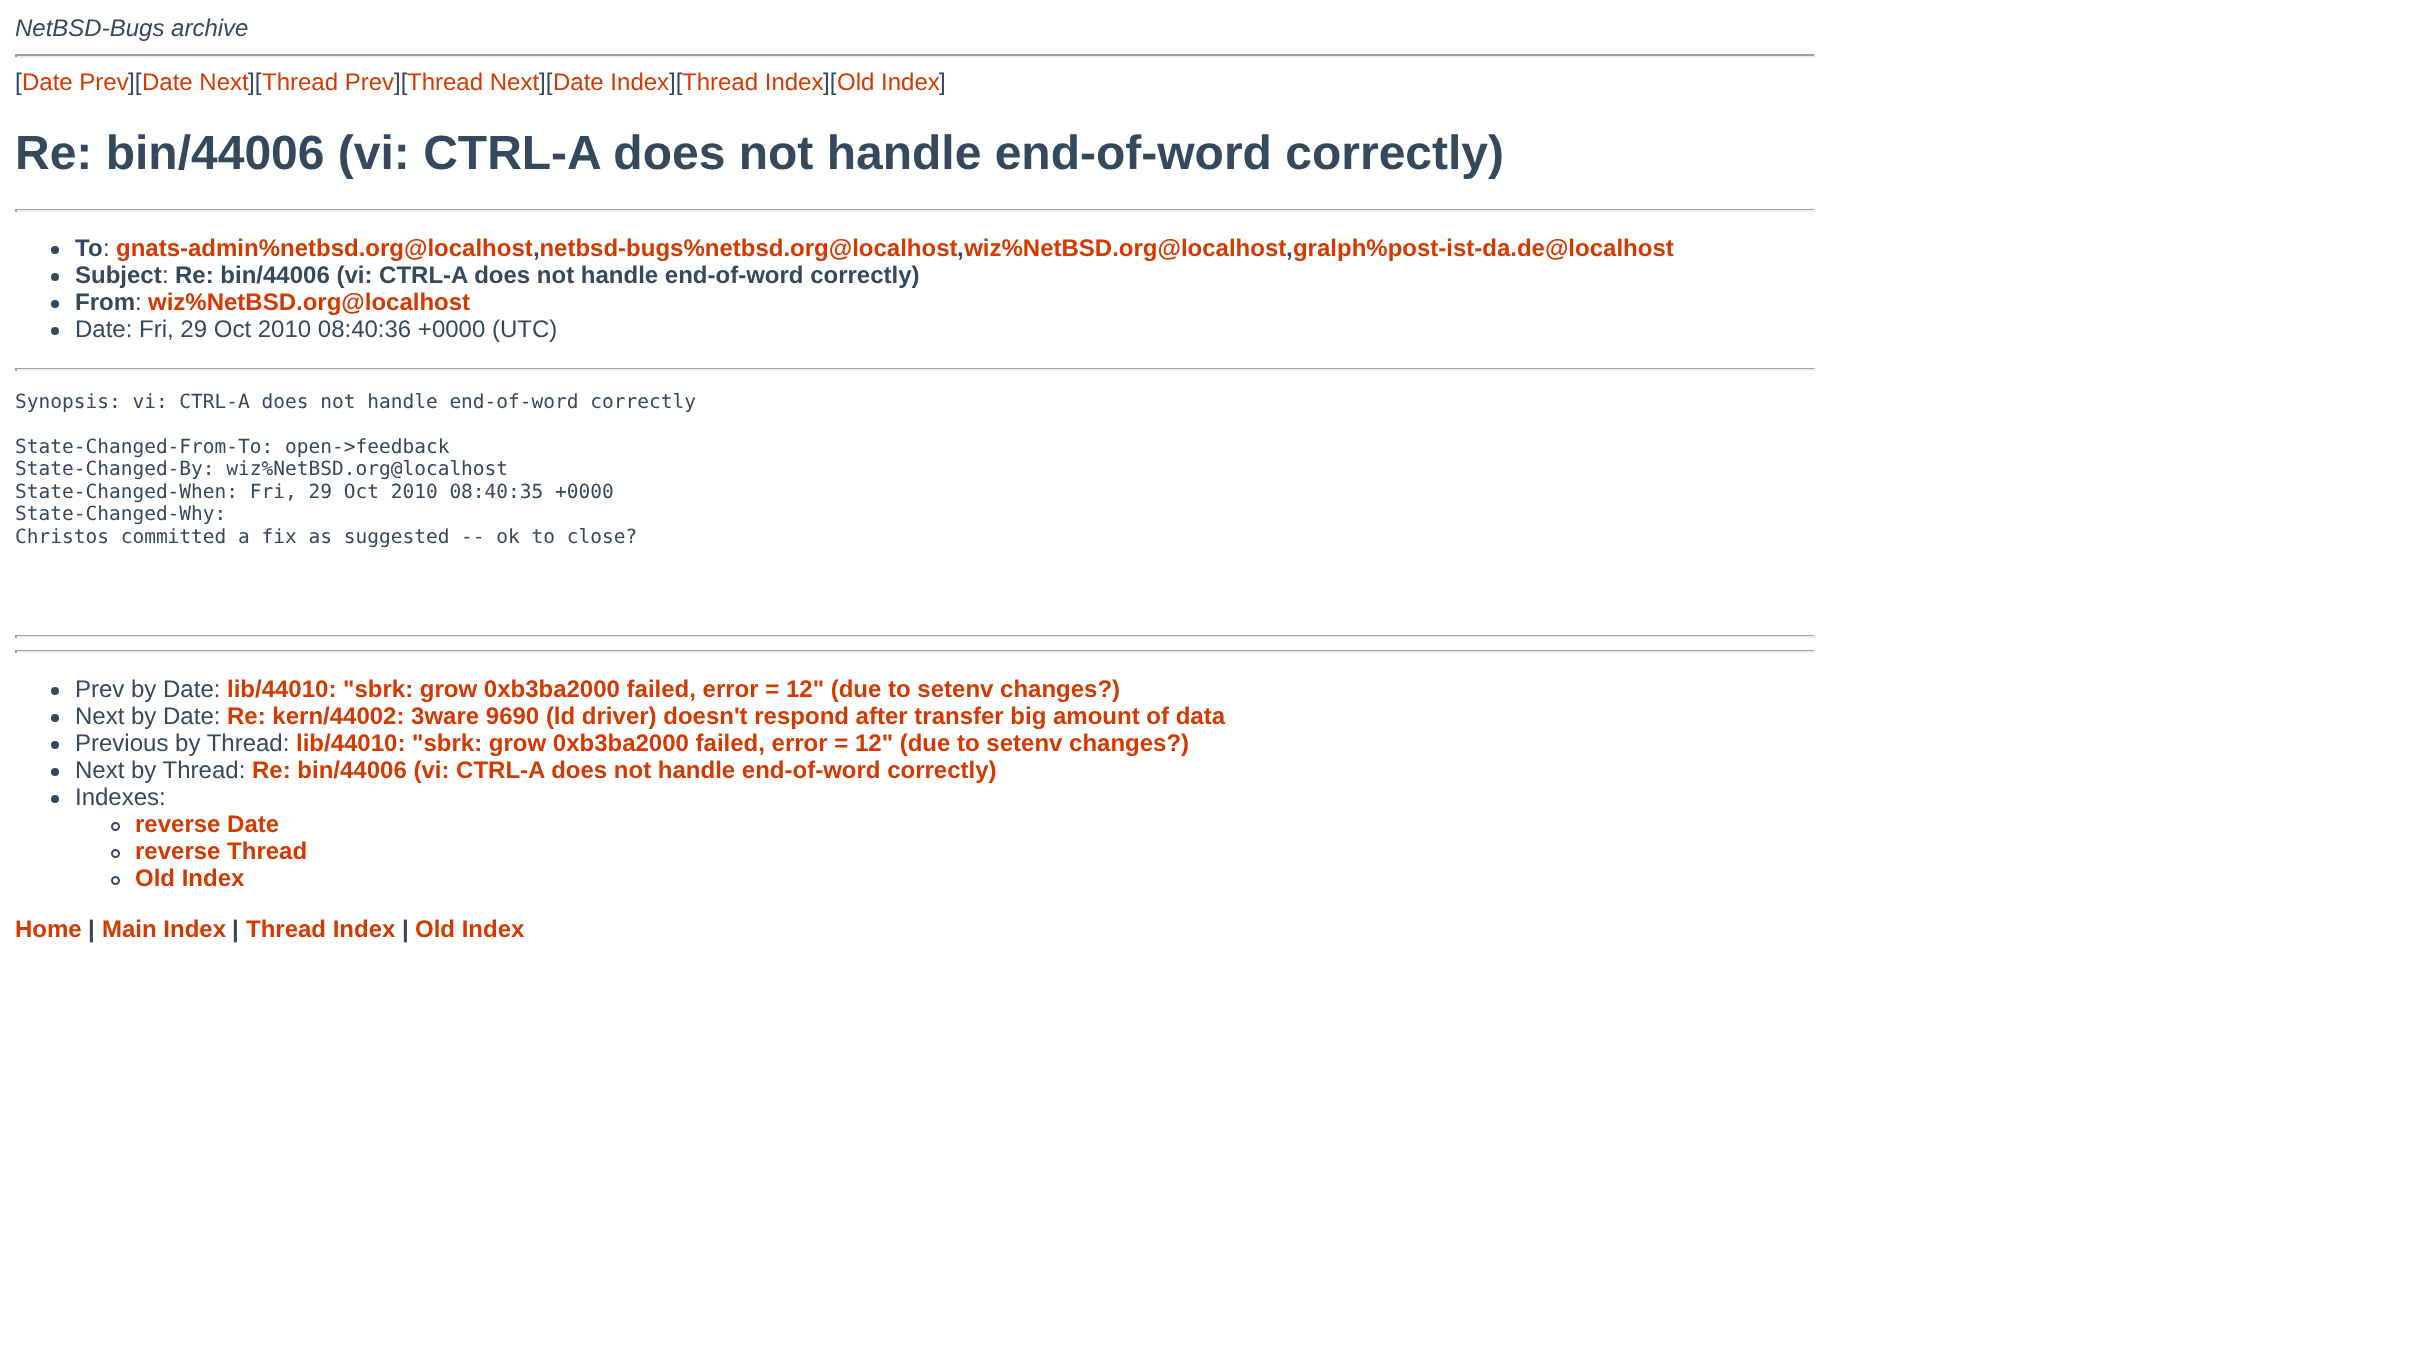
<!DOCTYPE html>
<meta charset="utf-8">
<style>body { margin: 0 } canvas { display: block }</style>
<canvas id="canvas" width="2410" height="1352"></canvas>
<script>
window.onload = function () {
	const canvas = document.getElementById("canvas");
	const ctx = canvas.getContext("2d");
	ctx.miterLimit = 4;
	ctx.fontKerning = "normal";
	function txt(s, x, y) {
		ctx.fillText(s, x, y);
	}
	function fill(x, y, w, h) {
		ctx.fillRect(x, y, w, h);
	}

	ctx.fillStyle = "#FFFFFF";
	fill(0, 0, 2410, 1352);
	ctx.fillStyle = "#9F9F9F";
	fill(15, 54, 1800, 2);
	ctx.fillStyle = "#EEEEEE";
	fill(1814, 54, 2, 3);
	fill(15, 56, 1800, 2);
	ctx.fillStyle = "#9F9F9F";
	fill(15, 54, 2, 3);
	fill(15, 209, 1800, 1);
	ctx.fillStyle = "#EEEEEE";
	fill(1814, 209, 2, 3);
	fill(15, 210, 1800, 2);
	ctx.fillStyle = "#9F9F9F";
	fill(15, 209, 2, 3);
	ctx.fillStyle = "#34495E";
	ctx.beginPath();
	ctx.arc(55, 250, 4, 0, Math.PI * 2);
	ctx.fill();
	ctx.beginPath();
	ctx.arc(55, 277, 4, 0, Math.PI * 2);
	ctx.fill();
	ctx.beginPath();
	ctx.arc(55, 304, 4, 0, Math.PI * 2);
	ctx.fill();
	ctx.beginPath();
	ctx.arc(55, 331, 4, 0, Math.PI * 2);
	ctx.fill();
	ctx.fillStyle = "#9F9F9F";
	fill(15, 368, 1800, 1);
	ctx.fillStyle = "#EEEEEE";
	fill(1814, 368, 2, 3);
	fill(15, 369, 1800, 2);
	ctx.fillStyle = "#9F9F9F";
	fill(15, 368, 2, 3);
	fill(15, 635, 1800, 1);
	ctx.fillStyle = "#EEEEEE";
	fill(1814, 635, 2, 3);
	fill(15, 636, 1800, 2);
	ctx.fillStyle = "#9F9F9F";
	fill(15, 635, 2, 3);
	fill(15, 650, 1800, 1);
	ctx.fillStyle = "#EEEEEE";
	fill(1814, 650, 2, 3);
	fill(15, 651, 1800, 2);
	ctx.fillStyle = "#9F9F9F";
	fill(15, 650, 2, 3);
	ctx.fillStyle = "#34495E";
	ctx.beginPath();
	ctx.arc(55, 691, 4, 0, Math.PI * 2);
	ctx.fill();
	ctx.beginPath();
	ctx.arc(55, 718, 4, 0, Math.PI * 2);
	ctx.fill();
	ctx.beginPath();
	ctx.arc(55, 745, 4, 0, Math.PI * 2);
	ctx.fill();
	ctx.beginPath();
	ctx.arc(55, 772, 4, 0, Math.PI * 2);
	ctx.fill();
	ctx.beginPath();
	ctx.arc(55, 799, 4, 0, Math.PI * 2);
	ctx.fill();
	ctx.beginPath();
	ctx.arc(115.5, 826.5, 3.5, 0, Math.PI * 2);
	ctx.strokeStyle = "#34495E";
	ctx.lineWidth = 2;
	ctx.stroke();
	ctx.beginPath();
	ctx.arc(115.5, 853.5, 3.5, 0, Math.PI * 2);
	ctx.stroke();
	ctx.beginPath();
	ctx.arc(115.5, 880.5, 3.5, 0, Math.PI * 2);
	ctx.stroke();
	ctx.font = "italic 24px Liberation Sans";
	txt("NetBSD-Bugs archive", 15, 36);
	ctx.font = "24px Liberation Sans";
	txt("[", 15, 90);
	ctx.fillStyle = "#D43900";
	txt("Date Prev", 22, 90);
	ctx.fillStyle = "#34495E";
	txt("][", 128, 90);
	ctx.fillStyle = "#D43900";
	txt("Date Next", 142, 90);
	ctx.fillStyle = "#34495E";
	txt("][", 248, 90);
	ctx.fillStyle = "#D43900";
	txt("Thread Prev", 262, 90);
	ctx.fillStyle = "#34495E";
	txt("][", 394, 90);
	ctx.fillStyle = "#D43900";
	txt("Thread Next", 407, 90);
	ctx.fillStyle = "#34495E";
	txt("][", 539, 90);
	ctx.fillStyle = "#D43900";
	txt("Date Index", 553, 90);
	ctx.fillStyle = "#34495E";
	txt("][", 669, 90);
	ctx.fillStyle = "#D43900";
	txt("Thread Index", 682, 90);
	ctx.fillStyle = "#34495E";
	txt("][", 823, 90);
	ctx.fillStyle = "#D43900";
	txt("Old Index", 837, 90);
	ctx.fillStyle = "#34495E";
	txt("]", 939, 90);
	ctx.font = "bold 48px Liberation Sans";
	txt("Re: bin/44006 (vi: CTRL-A does not handle end-of-word correctly)", 15, 169);
	ctx.font = "bold 24px Liberation Sans";
	txt("To", 75, 256);
	ctx.font = "24px Liberation Sans";
	txt(":", 103, 256);
	ctx.font = "bold 24px Liberation Sans";
	ctx.fillStyle = "#D43900";
	txt("gnats-admin%netbsd.org@localhost netbsd-bugs%netbsd.org@localhost wiz%NetBSD.org@localhost gralph%post-ist-da.de@localhost", 116, 256);
	ctx.fillStyle = "#34495E";
	txt(",", 533, 256);
	txt(",", 957, 256);
	txt(",", 1286, 256);
	txt("Subject", 75, 283);
	ctx.font = "24px Liberation Sans";
	txt(":", 162, 283);
	ctx.font = "bold 24px Liberation Sans";
	txt("Re: bin/44006 (vi: CTRL-A does not handle end-of-word correctly)", 175, 283);
	txt("From", 75, 310);
	ctx.font = "24px Liberation Sans";
	txt(":", 135, 310);
	ctx.font = "bold 24px Liberation Sans";
	ctx.fillStyle = "#D43900";
	txt("wiz%NetBSD.org@localhost", 148, 310);
	ctx.font = "24px Liberation Sans";
	ctx.fillStyle = "#34495E";
	txt("Date: Fri, 29 Oct 2010 08:40:36 +0000 (UTC)", 75, 337);
	ctx.font = "19.5px DejaVu Sans Mono";
	txt("Synopsis: vi: CTRL-A does not handle end-of-word correctly", 15, 408);
	txt("State-Changed-From-To: open->feedback", 15, 453);
	txt("State-Changed-By: wiz%NetBSD.org@localhost", 15, 475);
	txt("State-Changed-When: Fri, 29 Oct 2010 08:40:35 +0000", 15, 498);
	txt("State-Changed-Why:", 15, 520);
	txt("Christos committed a fix as suggested -- ok to close?", 15, 543);
	ctx.font = "24px Liberation Sans";
	txt("Prev by Date:", 75, 697);
	ctx.font = "bold 24px Liberation Sans";
	ctx.fillStyle = "#D43900";
	txt("lib/44010: \"sbrk: grow 0xb3ba2000 failed, error = 12\" (due to setenv changes?)", 227, 697);
	ctx.font = "24px Liberation Sans";
	ctx.fillStyle = "#34495E";
	txt("Next by Date:", 75, 724);
	ctx.font = "bold 24px Liberation Sans";
	ctx.fillStyle = "#D43900";
	txt("Re: kern/44002: 3ware 9690 (ld driver) doesn't respond after transfer big amount of data", 227, 724);
	ctx.font = "24px Liberation Sans";
	ctx.fillStyle = "#34495E";
	txt("Previous by Thread:", 75, 751);
	ctx.font = "bold 24px Liberation Sans";
	ctx.fillStyle = "#D43900";
	txt("lib/44010: \"sbrk: grow 0xb3ba2000 failed, error = 12\" (due to setenv changes?)", 296, 751);
	ctx.font = "24px Liberation Sans";
	ctx.fillStyle = "#34495E";
	txt("Next by Thread:", 75, 778);
	ctx.font = "bold 24px Liberation Sans";
	ctx.fillStyle = "#D43900";
	txt("Re: bin/44006 (vi: CTRL-A does not handle end-of-word correctly)", 252, 778);
	ctx.font = "24px Liberation Sans";
	ctx.fillStyle = "#34495E";
	txt("Indexes:", 75, 805);
	ctx.font = "bold 24px Liberation Sans";
	ctx.fillStyle = "#D43900";
	txt("reverse Date", 135, 832);
	txt("reverse Thread", 135, 859);
	txt("Old Index", 135, 886);
	txt("Home", 15, 937);
	ctx.fillStyle = "#34495E";
	txt("|", 88, 937);
	ctx.fillStyle = "#D43900";
	txt("Main Index", 102, 937);
	ctx.fillStyle = "#34495E";
	txt("|", 232, 937);
	ctx.fillStyle = "#D43900";
	txt("Thread Index", 246, 937);
	ctx.fillStyle = "#34495E";
	txt("|", 402, 937);
	ctx.fillStyle = "#D43900";
	txt("Old Index", 415, 937);
};
</script>
